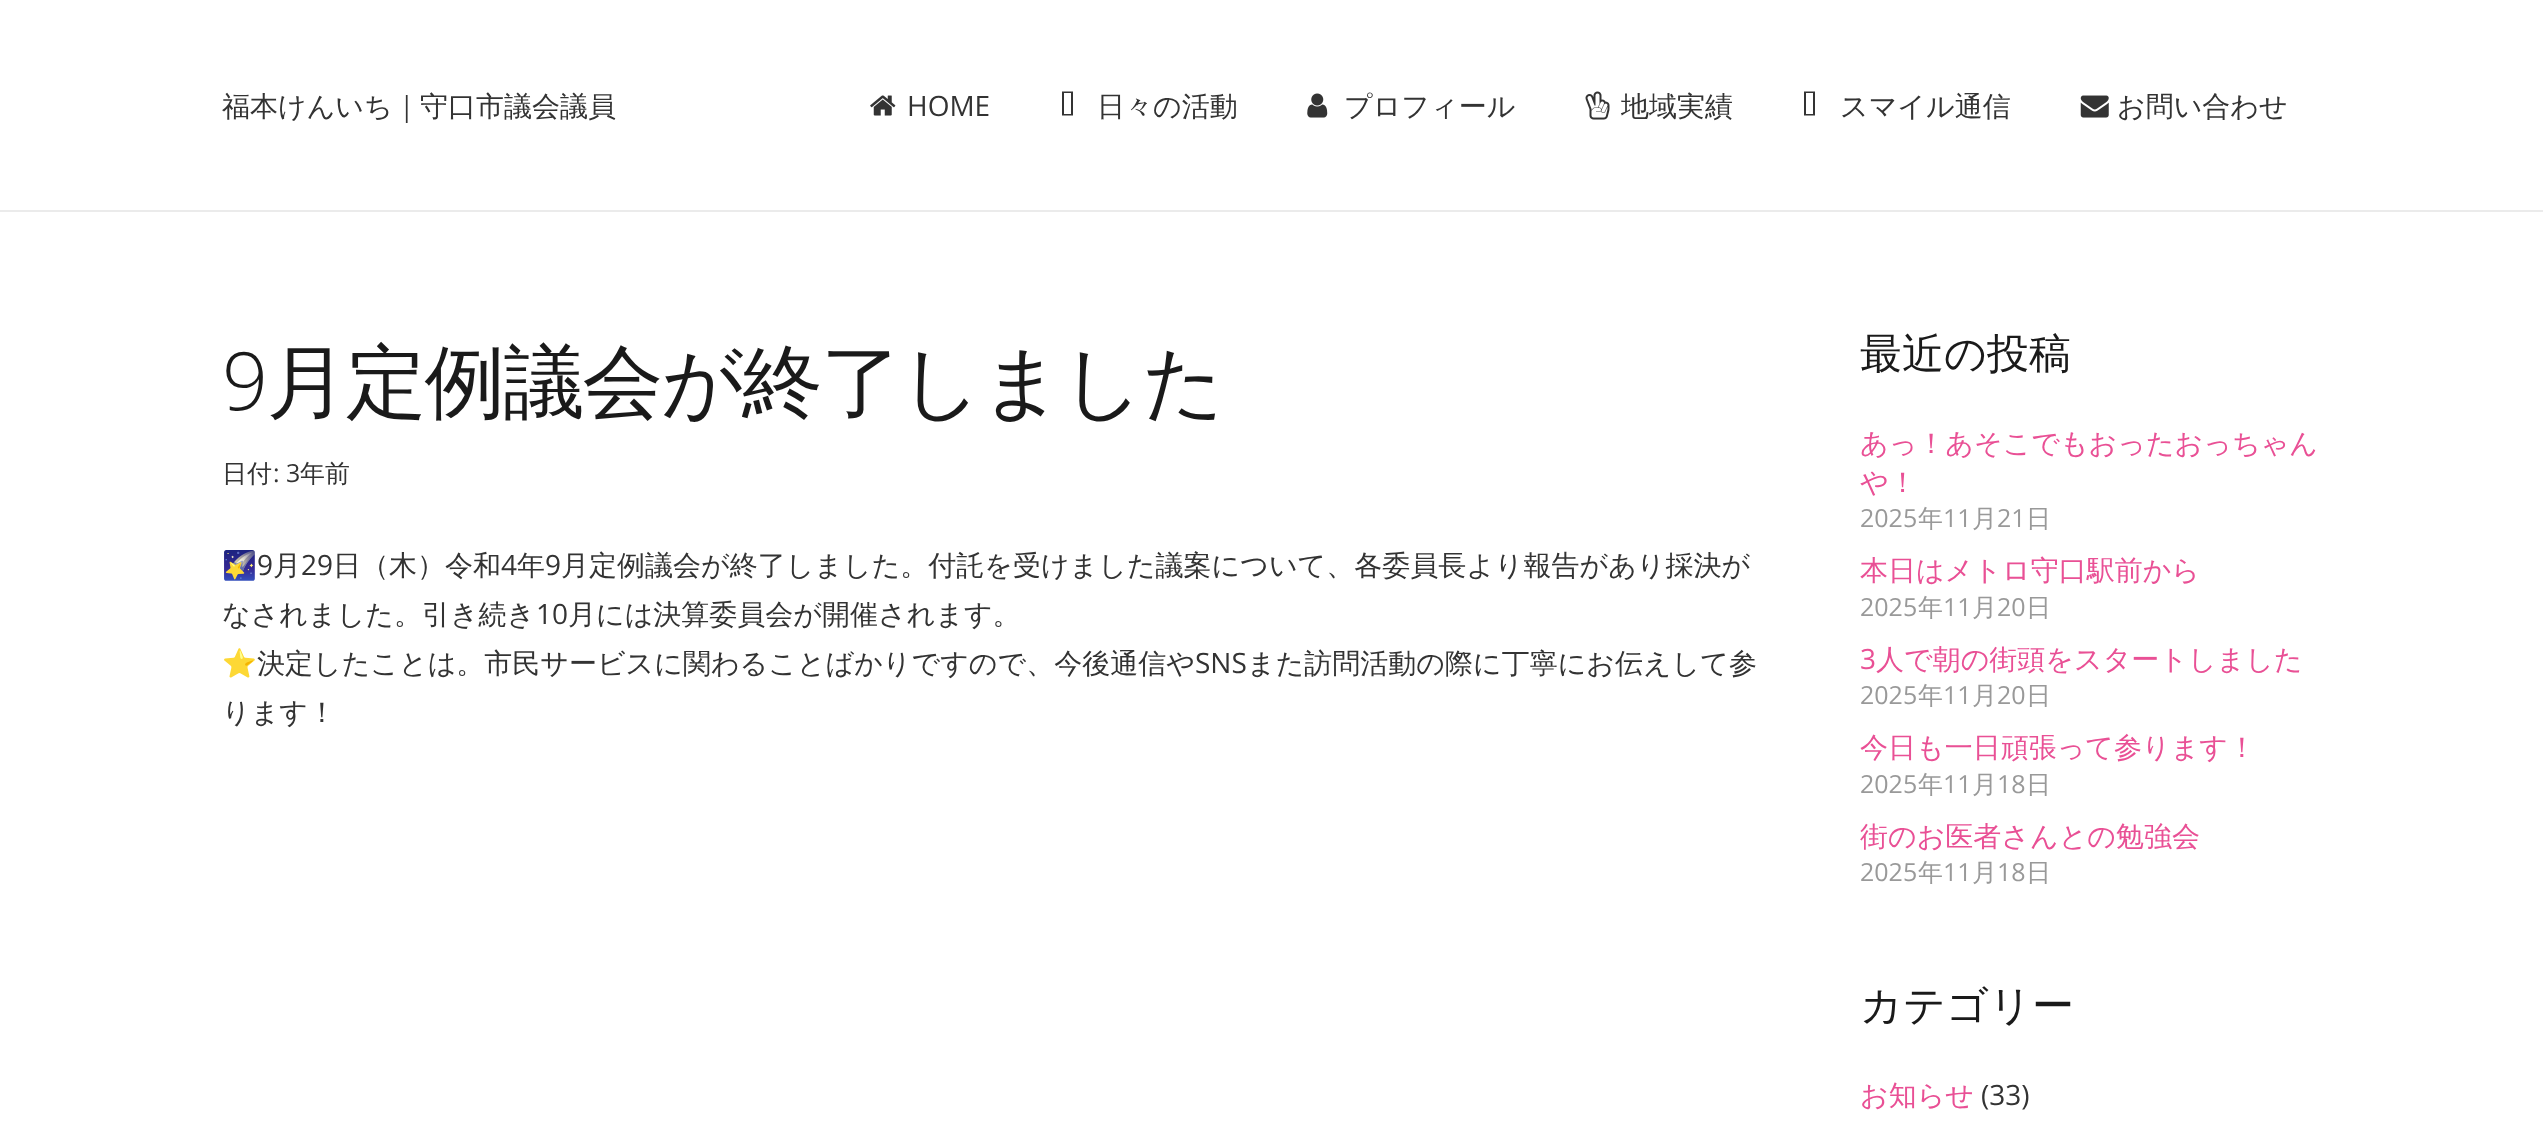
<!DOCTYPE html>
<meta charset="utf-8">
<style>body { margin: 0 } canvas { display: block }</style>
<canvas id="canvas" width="2543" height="1144"></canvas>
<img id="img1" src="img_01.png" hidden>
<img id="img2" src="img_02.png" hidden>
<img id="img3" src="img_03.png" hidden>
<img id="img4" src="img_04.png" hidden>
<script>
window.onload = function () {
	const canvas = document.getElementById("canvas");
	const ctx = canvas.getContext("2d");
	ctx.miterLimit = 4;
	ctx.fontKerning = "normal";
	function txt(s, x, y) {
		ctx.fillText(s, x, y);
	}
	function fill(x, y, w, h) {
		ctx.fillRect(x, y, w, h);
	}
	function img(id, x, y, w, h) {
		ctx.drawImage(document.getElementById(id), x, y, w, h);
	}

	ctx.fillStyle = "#FFFFFF";
	fill(0, 0, 2543, 1144);
	ctx.fillStyle = "#EBEBEB";
	ctx.beginPath();
	ctx.moveTo(0, 210);
	ctx.lineTo(0, 212);
	ctx.lineTo(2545, 212);
	ctx.lineTo(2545, 2);
	ctx.lineTo(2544, 2);
	ctx.lineTo(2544, 210);
	ctx.closePath();
	ctx.fill();
	img("img1", 870, 95, 26, 21);
	ctx.fillStyle = "#333333";
	ctx.beginPath();
	ctx.moveTo(1064, 114);
	ctx.lineTo(1064, 93);
	ctx.lineTo(1071, 93);
	ctx.lineTo(1071, 114);
	ctx.closePath();
	ctx.moveTo(1062, 115.5);
	ctx.lineTo(1073, 115.5);
	ctx.lineTo(1073, 91.5);
	ctx.lineTo(1062, 91.5);
	ctx.closePath();
	ctx.fill();
	img("img2", 1307, 93, 21, 25);
	img("img3", 1585, 91, 25, 29);
	ctx.beginPath();
	ctx.moveTo(1806, 114);
	ctx.lineTo(1806, 93);
	ctx.lineTo(1813, 93);
	ctx.lineTo(1813, 114);
	ctx.closePath();
	ctx.moveTo(1804, 115.5);
	ctx.lineTo(1815, 115.5);
	ctx.lineTo(1815, 91.5);
	ctx.lineTo(1804, 91.5);
	ctx.closePath();
	ctx.fill();
	img("img4", 2080, 95, 29, 23);
	ctx.font = "500 28px WenQuanYi Zen Hei";
	txt("福本けんいち｜守口市議会議員", 222, 116);
	ctx.font = "28px Open Sans";
	txt("HOME", 907, 116);
	ctx.font = "500 28px WenQuanYi Zen Hei";
	txt("日々の活動", 1097, 116);
	txt("プロフィール", 1344, 116);
	txt("地域実績", 1621, 116);
	txt("スマイル通信", 1840, 116);
	txt("お問い合わせ", 2117, 116);
	ctx.letterSpacing = "-1.6px";
	ctx.font = "300 80.5px Open Sans";
	ctx.fillStyle = "#1A1A1A";
	txt("9", 222, 410);
	ctx.font = "500 80.5px WenQuanYi Zen Hei";
	txt("月定例議会が終了しました", 267, 410);
	ctx.letterSpacing = "0px";
	ctx.font = "500 25px WenQuanYi Zen Hei";
	ctx.fillStyle = "#333333";
	txt("日付", 222, 482);
	ctx.font = "25px Open Sans";
	txt(": 3", 273, 482);
	ctx.font = "500 25px WenQuanYi Zen Hei";
	txt("年前", 300, 482);
	ctx.font = "28px Noto Color Emoji";
	txt("🌠", 222, 575);
	ctx.font = "28px Open Sans";
	txt("9", 257, 575);
	ctx.font = "500 28px WenQuanYi Zen Hei";
	txt("月", 273, 575);
	ctx.font = "28px Open Sans";
	txt("29", 301, 575);
	ctx.font = "500 28px WenQuanYi Zen Hei";
	txt("日（木）令和", 333, 575);
	ctx.font = "28px Open Sans";
	txt("4", 501, 575);
	ctx.font = "500 28px WenQuanYi Zen Hei";
	txt("年", 517, 575);
	ctx.font = "28px Open Sans";
	txt("9", 545, 575);
	ctx.font = "500 28px WenQuanYi Zen Hei";
	txt("月定例議会が終了しました。付託を受けました議案について、各委員長より報告があり採決が", 561, 575);
	txt("なされました。引き続き", 222, 624);
	ctx.font = "28px Open Sans";
	txt("10", 536, 624);
	ctx.font = "500 28px WenQuanYi Zen Hei";
	txt("月には決算委員会が開催されます。", 568, 624);
	ctx.font = "28px Noto Color Emoji";
	txt("⭐️", 222, 673);
	ctx.font = "500 28px WenQuanYi Zen Hei";
	txt("決定したことは。市民サービスに関わることばかりですので、今後通信や", 257, 673);
	ctx.font = "28px Open Sans";
	txt("SNS", 1195, 673);
	ctx.font = "500 28px WenQuanYi Zen Hei";
	txt("また訪問活動の際に丁寧にお伝えして参", 1247, 673);
	txt("ります！", 222, 722);
	ctx.font = "500 42px WenQuanYi Zen Hei";
	ctx.fillStyle = "#1A1A1A";
	txt("最近の投稿", 1860, 368);
	ctx.font = "500 28px WenQuanYi Zen Hei";
	ctx.fillStyle = "#E95095";
	txt("あっ！あそこでもおったおっちゃん", 1860, 453);
	txt("や！", 1860, 492);
	ctx.font = "25px Open Sans";
	ctx.fillStyle = "#999999";
	txt("2025", 1860, 527);
	ctx.font = "500 25px WenQuanYi Zen Hei";
	txt("年", 1918, 527);
	ctx.font = "25px Open Sans";
	txt("11", 1943, 527);
	ctx.font = "500 25px WenQuanYi Zen Hei";
	txt("月", 1972, 527);
	ctx.font = "25px Open Sans";
	txt("21", 1997, 527);
	ctx.font = "500 25px WenQuanYi Zen Hei";
	txt("日", 2026, 527);
	ctx.font = "500 28px WenQuanYi Zen Hei";
	ctx.fillStyle = "#E95095";
	txt("本日はメトロ守口駅前から", 1860, 580);
	ctx.font = "25px Open Sans";
	ctx.fillStyle = "#999999";
	txt("2025", 1860, 616);
	ctx.font = "500 25px WenQuanYi Zen Hei";
	txt("年", 1918, 616);
	ctx.font = "25px Open Sans";
	txt("11", 1943, 616);
	ctx.font = "500 25px WenQuanYi Zen Hei";
	txt("月", 1972, 616);
	ctx.font = "25px Open Sans";
	txt("20", 1997, 616);
	ctx.font = "500 25px WenQuanYi Zen Hei";
	txt("日", 2026, 616);
	ctx.font = "28px Open Sans";
	ctx.fillStyle = "#E95095";
	txt("3", 1860, 669);
	ctx.font = "500 28px WenQuanYi Zen Hei";
	txt("人で朝の街頭をスタートしました", 1876, 669);
	ctx.font = "25px Open Sans";
	ctx.fillStyle = "#999999";
	txt("2025", 1860, 704);
	ctx.font = "500 25px WenQuanYi Zen Hei";
	txt("年", 1918, 704);
	ctx.font = "25px Open Sans";
	txt("11", 1943, 704);
	ctx.font = "500 25px WenQuanYi Zen Hei";
	txt("月", 1972, 704);
	ctx.font = "25px Open Sans";
	txt("20", 1997, 704);
	ctx.font = "500 25px WenQuanYi Zen Hei";
	txt("日", 2026, 704);
	ctx.font = "500 28px WenQuanYi Zen Hei";
	ctx.fillStyle = "#E95095";
	txt("今日も一日頑張って参ります！", 1860, 757);
	ctx.font = "25px Open Sans";
	ctx.fillStyle = "#999999";
	txt("2025", 1860, 793);
	ctx.font = "500 25px WenQuanYi Zen Hei";
	txt("年", 1918, 793);
	ctx.font = "25px Open Sans";
	txt("11", 1943, 793);
	ctx.font = "500 25px WenQuanYi Zen Hei";
	txt("月", 1972, 793);
	ctx.font = "25px Open Sans";
	txt("18", 1997, 793);
	ctx.font = "500 25px WenQuanYi Zen Hei";
	txt("日", 2026, 793);
	ctx.font = "500 28px WenQuanYi Zen Hei";
	ctx.fillStyle = "#E95095";
	txt("街のお医者さんとの勉強会", 1860, 846);
	ctx.font = "25px Open Sans";
	ctx.fillStyle = "#999999";
	txt("2025", 1860, 881);
	ctx.font = "500 25px WenQuanYi Zen Hei";
	txt("年", 1918, 881);
	ctx.font = "25px Open Sans";
	txt("11", 1943, 881);
	ctx.font = "500 25px WenQuanYi Zen Hei";
	txt("月", 1972, 881);
	ctx.font = "25px Open Sans";
	txt("18", 1997, 881);
	ctx.font = "500 25px WenQuanYi Zen Hei";
	txt("日", 2026, 881);
	ctx.font = "500 42px WenQuanYi Zen Hei";
	ctx.fillStyle = "#1A1A1A";
	txt("カテゴリー", 1860, 1020);
	ctx.font = "500 28px WenQuanYi Zen Hei";
	ctx.fillStyle = "#E95095";
	txt("お知らせ", 1860, 1105);
	ctx.font = "28px Open Sans";
	ctx.fillStyle = "#333333";
	txt("(33)", 1981, 1105);
};
</script>
